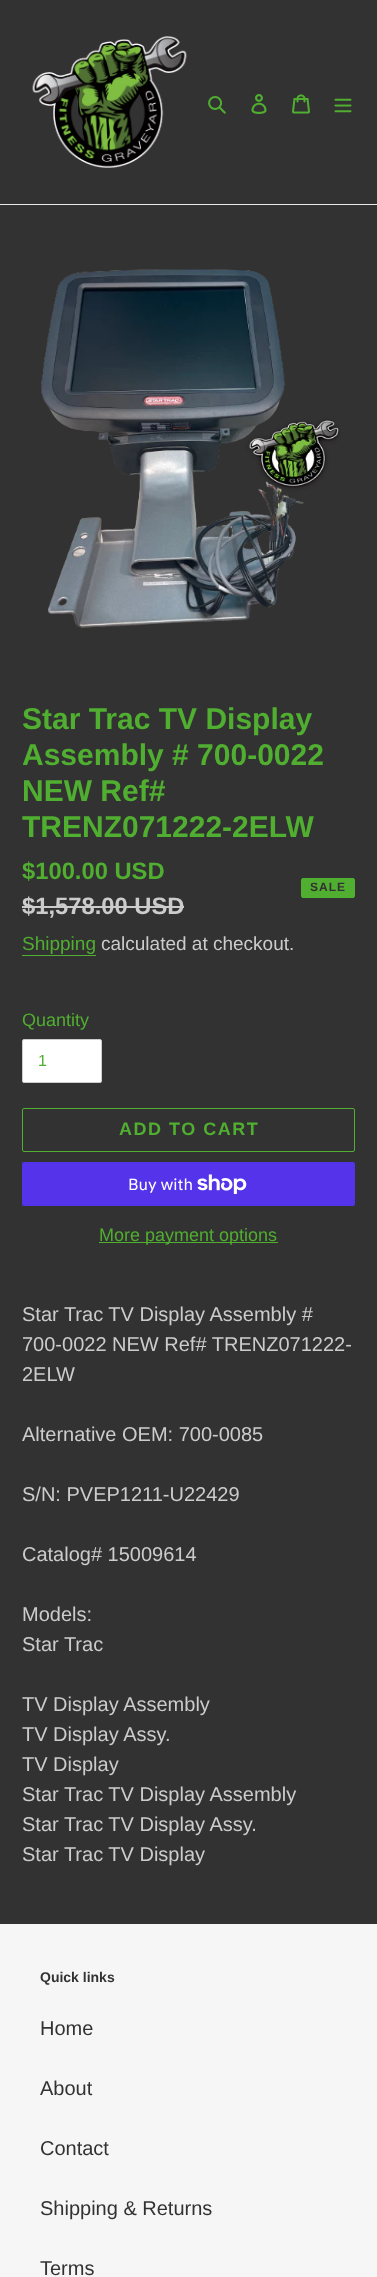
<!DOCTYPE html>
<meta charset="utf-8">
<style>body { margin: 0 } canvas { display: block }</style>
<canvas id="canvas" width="377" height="2277"></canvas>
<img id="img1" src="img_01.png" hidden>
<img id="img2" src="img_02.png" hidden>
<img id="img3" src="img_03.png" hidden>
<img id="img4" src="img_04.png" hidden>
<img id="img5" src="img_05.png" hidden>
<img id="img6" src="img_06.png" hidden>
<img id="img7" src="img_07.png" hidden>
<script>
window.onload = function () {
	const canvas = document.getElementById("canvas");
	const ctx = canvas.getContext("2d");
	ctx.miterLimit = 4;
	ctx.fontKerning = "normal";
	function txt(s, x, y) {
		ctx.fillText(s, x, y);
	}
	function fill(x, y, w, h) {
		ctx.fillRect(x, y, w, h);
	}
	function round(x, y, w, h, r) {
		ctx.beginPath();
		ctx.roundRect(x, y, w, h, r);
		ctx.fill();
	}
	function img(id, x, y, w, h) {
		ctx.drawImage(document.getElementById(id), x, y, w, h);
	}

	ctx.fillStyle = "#333232";
	fill(0, 0, 377, 2277);
	ctx.fillStyle = "#EBEBEB";
	fill(0, 204, 377, 1);
	img("img1", 32, 36, 155, 132);
	img("img2", 208, 96, 18, 18);
	img("img3", 251, 94, 16, 20);
	img("img4", 292, 94, 18, 20);
	img("img5", 334, 98, 18, 15);
	img("img6", 41, 269, 299, 359);
	ctx.fillStyle = "#CCCCCC";
	fill(22, 906, 162, 2);
	ctx.fillStyle = "#50AE30";
	ctx.beginPath();
	ctx.roundRect(301.5, 878.5, 53, 19, 1.5);
	ctx.fill();
	ctx.strokeStyle = "#50AE30";
	ctx.stroke();
	fill(22, 955, 74, 1);
	ctx.fillStyle = "#FFFFFF";
	ctx.beginPath();
	ctx.roundRect(22.5, 1039.5, 79, 43, 1.5);
	ctx.fill();
	ctx.strokeStyle = "#CCCCCC";
	ctx.stroke();
	ctx.beginPath();
	ctx.roundRect(22.5, 1108.5, 332, 43, 1.5);
	ctx.strokeStyle = "#50AE30";
	ctx.stroke();
	ctx.fillStyle = "#5433EB";
	round(22, 1162, 333, 44, 2);
	img("img7", 197, 1174, 50, 20);
	ctx.fillStyle = "#50AE30";
	fill(99, 1242, 179, 1);
	ctx.fillStyle = "#F6F6F6";
	fill(0, 1924, 377, 353);
	ctx.font = "bold 30px Liberation Sans";
	ctx.fillStyle = "#50AE30";
	txt("Star Trac TV Display", 22, 729);
	txt("Assembly # 700-0022", 22, 765);
	txt("NEW Ref#", 22, 801);
	txt("TRENZ071222-2ELW", 22, 837);
	ctx.font = "bold 23.75px Liberation Sans";
	txt("$100.00 USD", 22, 879);
	ctx.fillStyle = "#CCCCCC";
	txt("$1,578.00 USD", 22, 914);
	ctx.letterSpacing = "1px";
	ctx.font = "bold 12px Liberation Sans";
	ctx.fillStyle = "#333232";
	txt("SALE", 310, 891);
	ctx.letterSpacing = "0px";
	ctx.font = "19px Liberation Sans";
	ctx.fillStyle = "#50AE30";
	txt("Shipping", 22, 950);
	ctx.fillStyle = "#CCCCCC";
	txt("calculated at checkout.", 101, 950);
	ctx.font = "18px Liberation Sans";
	ctx.fillStyle = "#50AE30";
	txt("Quantity", 22, 1026);
	ctx.font = "16px Liberation Sans";
	txt("1", 38, 1066);
	ctx.letterSpacing = "1.5px";
	ctx.font = "bold 18px Liberation Sans";
	txt("ADD TO CART", 119, 1135);
	ctx.letterSpacing = "0px";
	ctx.font = "16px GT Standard";
	ctx.fillStyle = "#FFFFFF";
	txt("Buy with", 128, 1190);
	ctx.font = "18px Liberation Sans";
	ctx.fillStyle = "#50AE30";
	txt("More payment options", 99, 1241);
	ctx.font = "20px Liberation Sans";
	ctx.fillStyle = "#CCCCCC";
	txt("Star Trac TV Display Assembly #", 22, 1321);
	txt("700-0022 NEW Ref# TRENZ071222-", 22, 1351);
	txt("2ELW", 22, 1381);
	txt("Alternative OEM: 700-0085", 22, 1441);
	txt("S/N: PVEP1211-U22429", 22, 1501);
	txt("Catalog# 15009614", 22, 1561);
	txt("Models:", 22, 1621);
	txt("Star Trac", 22, 1651);
	txt("TV Display Assembly", 22, 1711);
	txt("TV Display Assy.", 22, 1741);
	txt("TV Display", 22, 1771);
	txt("Star Trac TV Display Assembly", 22, 1801);
	txt("Star Trac TV Display Assy.", 22, 1831);
	txt("Star Trac TV Display", 22, 1861);
	ctx.font = "bold 14px Liberation Sans";
	ctx.fillStyle = "#333232";
	txt("Quick links", 40, 1982);
	ctx.font = "20px Liberation Sans";
	txt("Home", 40, 2035);
	txt("About", 40, 2095);
	txt("Contact", 40, 2155);
	txt("Shipping & Returns", 40, 2215);
	txt("Terms", 40, 2275);
};
</script>
